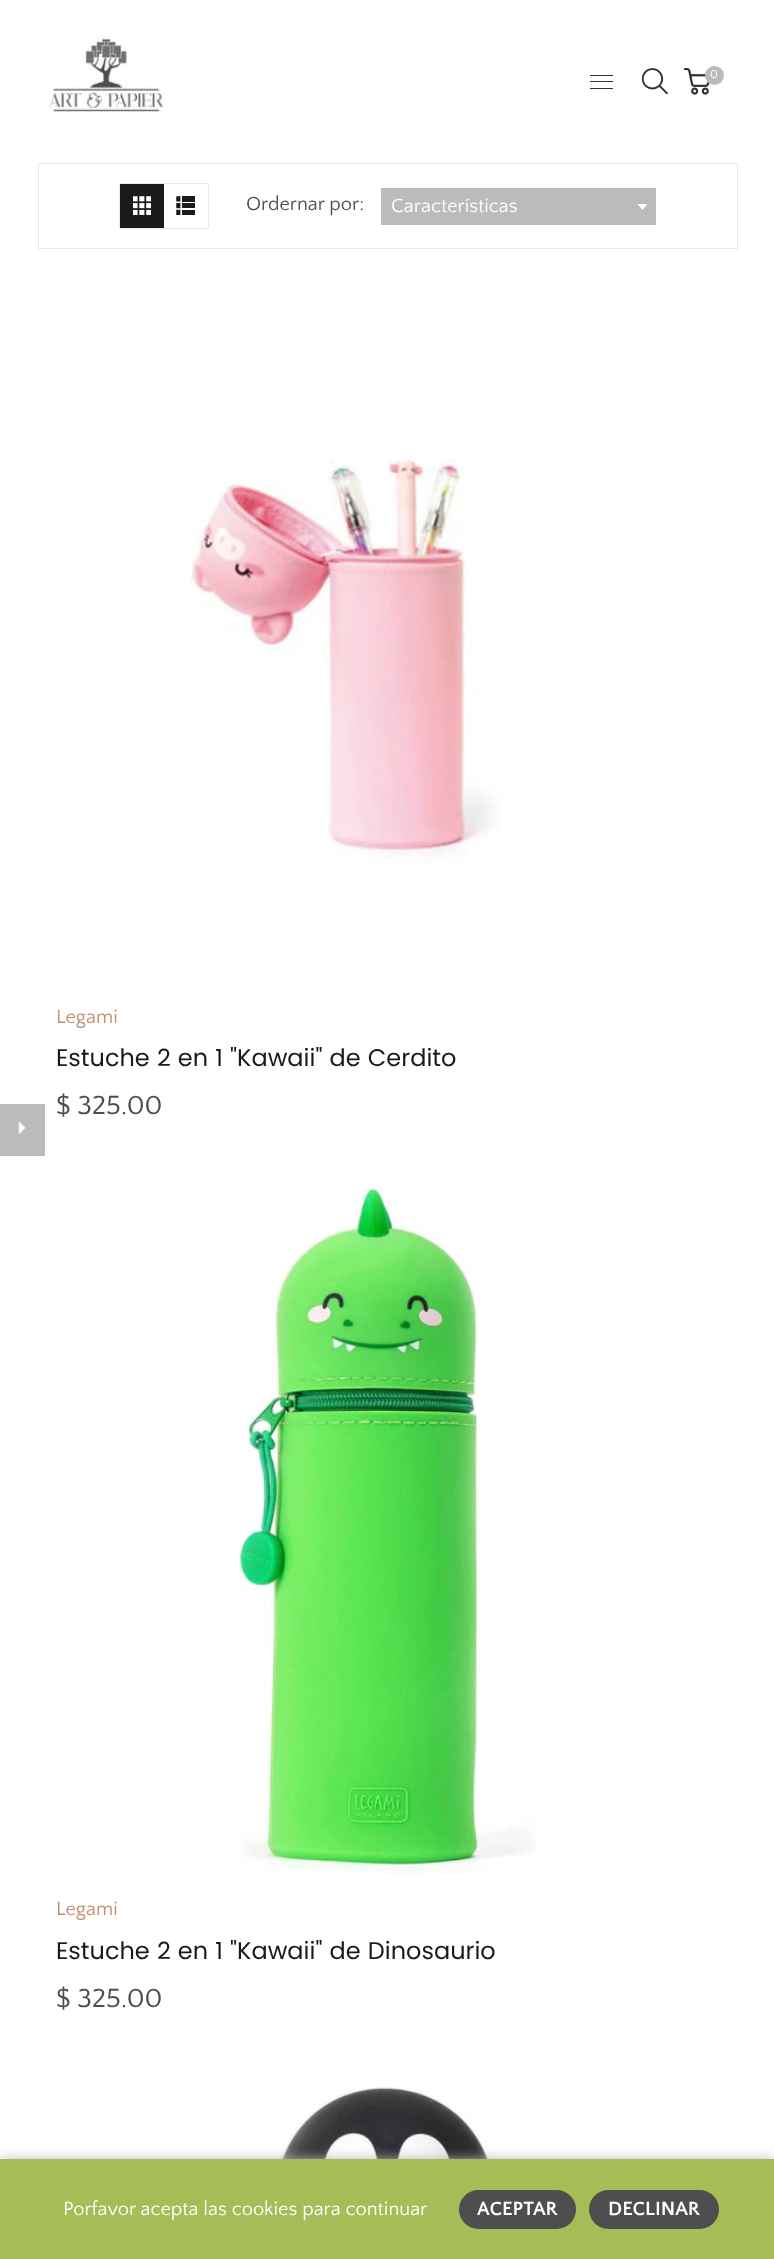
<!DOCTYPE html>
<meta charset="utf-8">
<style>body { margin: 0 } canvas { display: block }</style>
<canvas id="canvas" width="774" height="2259"></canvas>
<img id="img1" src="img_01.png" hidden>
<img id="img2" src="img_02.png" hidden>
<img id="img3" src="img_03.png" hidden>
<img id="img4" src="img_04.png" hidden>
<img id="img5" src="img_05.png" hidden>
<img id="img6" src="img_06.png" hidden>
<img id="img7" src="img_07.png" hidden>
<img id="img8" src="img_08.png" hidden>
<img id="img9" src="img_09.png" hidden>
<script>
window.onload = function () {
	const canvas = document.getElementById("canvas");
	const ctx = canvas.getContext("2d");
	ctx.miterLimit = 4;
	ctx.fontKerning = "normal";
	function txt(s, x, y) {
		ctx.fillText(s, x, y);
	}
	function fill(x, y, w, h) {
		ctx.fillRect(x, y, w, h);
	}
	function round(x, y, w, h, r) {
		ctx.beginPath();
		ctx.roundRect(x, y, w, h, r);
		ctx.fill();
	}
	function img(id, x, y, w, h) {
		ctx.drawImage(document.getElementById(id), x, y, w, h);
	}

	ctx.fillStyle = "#FFFFFF";
	fill(0, 0, 774, 2259);
	img("img1", 49, 36, 115, 76);
	img("img2", 641, 68, 27, 27);
	img("img3", 684, 68, 26, 27);
	ctx.fillStyle = "#BBBBBB";
	ctx.beginPath();
	ctx.arc(714.5, 75.5, 9.5, 0, Math.PI * 2);
	ctx.fill();
	ctx.fillStyle = "#323338";
	fill(590, 81, 23, 1);
	fill(590, 75, 23, 1);
	fill(590, 88, 23, 1);
	ctx.fillStyle = "#BBBBBB";
	fill(0, 1104, 45, 52);
	img("img4", 18, 1122, 7, 12);
	ctx.strokeStyle = "#E9E9E9";
	ctx.strokeRect(38.5, 163.5, 699, 85);
	ctx.strokeRect(119.5, 183.5, 89, 45);
	ctx.fillStyle = "#1A1A1A";
	fill(120, 184, 44, 44);
	img("img5", 133, 196, 18, 19);
	img("img6", 176, 196, 19, 19);
	ctx.fillStyle = "#BBBBBB";
	fill(381, 188, 275, 37);
	ctx.fillStyle = "#FFFFFF";
	ctx.beginPath();
	ctx.moveTo(637.5, 204);
	ctx.lineTo(647.5, 204);
	ctx.lineTo(642.5, 210);
	ctx.closePath();
	ctx.fill();
	img("img7", 190, 459, 310, 405);
	img("img8", 238, 1187, 298, 687);
	img("img9", 264, 2087, 235, 72);
	ctx.fillStyle = "#BBBBBB";
	ctx.filter = "blur(6px)";
	ctx.beginPath();
	ctx.rect(0, 2159, 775, 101);
	ctx.fill();
	ctx.filter = "none";
	ctx.fillStyle = "#A7BB57";
	fill(0, 2159, 774, 100);
	ctx.fillStyle = "#4E4E4E";
	round(459, 2190, 117, 39, 19.5);
	round(589, 2190, 130, 39, 19.5);
	ctx.font = "12px Quattrocento Sans";
	ctx.fillStyle = "#FFFFFF";
	txt("0", 710, 78);
	ctx.font = "20px Quattrocento Sans";
	ctx.fillStyle = "#4E4E4E";
	txt("Ordernar por:", 246, 210);
	ctx.fillStyle = "#FFFFFF";
	txt("Características", 391, 212);
	ctx.fillStyle = "#C38F6B";
	txt("Legami", 56, 1023);
	ctx.font = "24px Poppins";
	ctx.fillStyle = "#1A1A1A";
	txt("Estuche 2 en 1 \"Kawaii\" de Cerdito", 56, 1066);
	ctx.font = "27.5px Quattrocento Sans";
	ctx.fillStyle = "#4E4E4E";
	txt("$ 325.00", 56, 1114);
	ctx.font = "20px Quattrocento Sans";
	ctx.fillStyle = "#C38F6B";
	txt("Legami", 56, 1915);
	ctx.font = "24px Poppins";
	ctx.fillStyle = "#1A1A1A";
	txt("Estuche 2 en 1 \"Kawaii\" de Dinosaurio", 56, 1959);
	ctx.font = "27.5px Quattrocento Sans";
	ctx.fillStyle = "#4E4E4E";
	txt("$ 325.00", 56, 2007);
	ctx.font = "20px Quattrocento Sans";
	ctx.fillStyle = "#FFFFFF";
	txt("Porfavor acepta las cookies para continuar", 63, 2215);
	ctx.font = "bold 20px Quattrocento Sans";
	txt("ACEPTAR", 477, 2215);
	txt("DECLINAR", 608, 2215);
};
</script>
